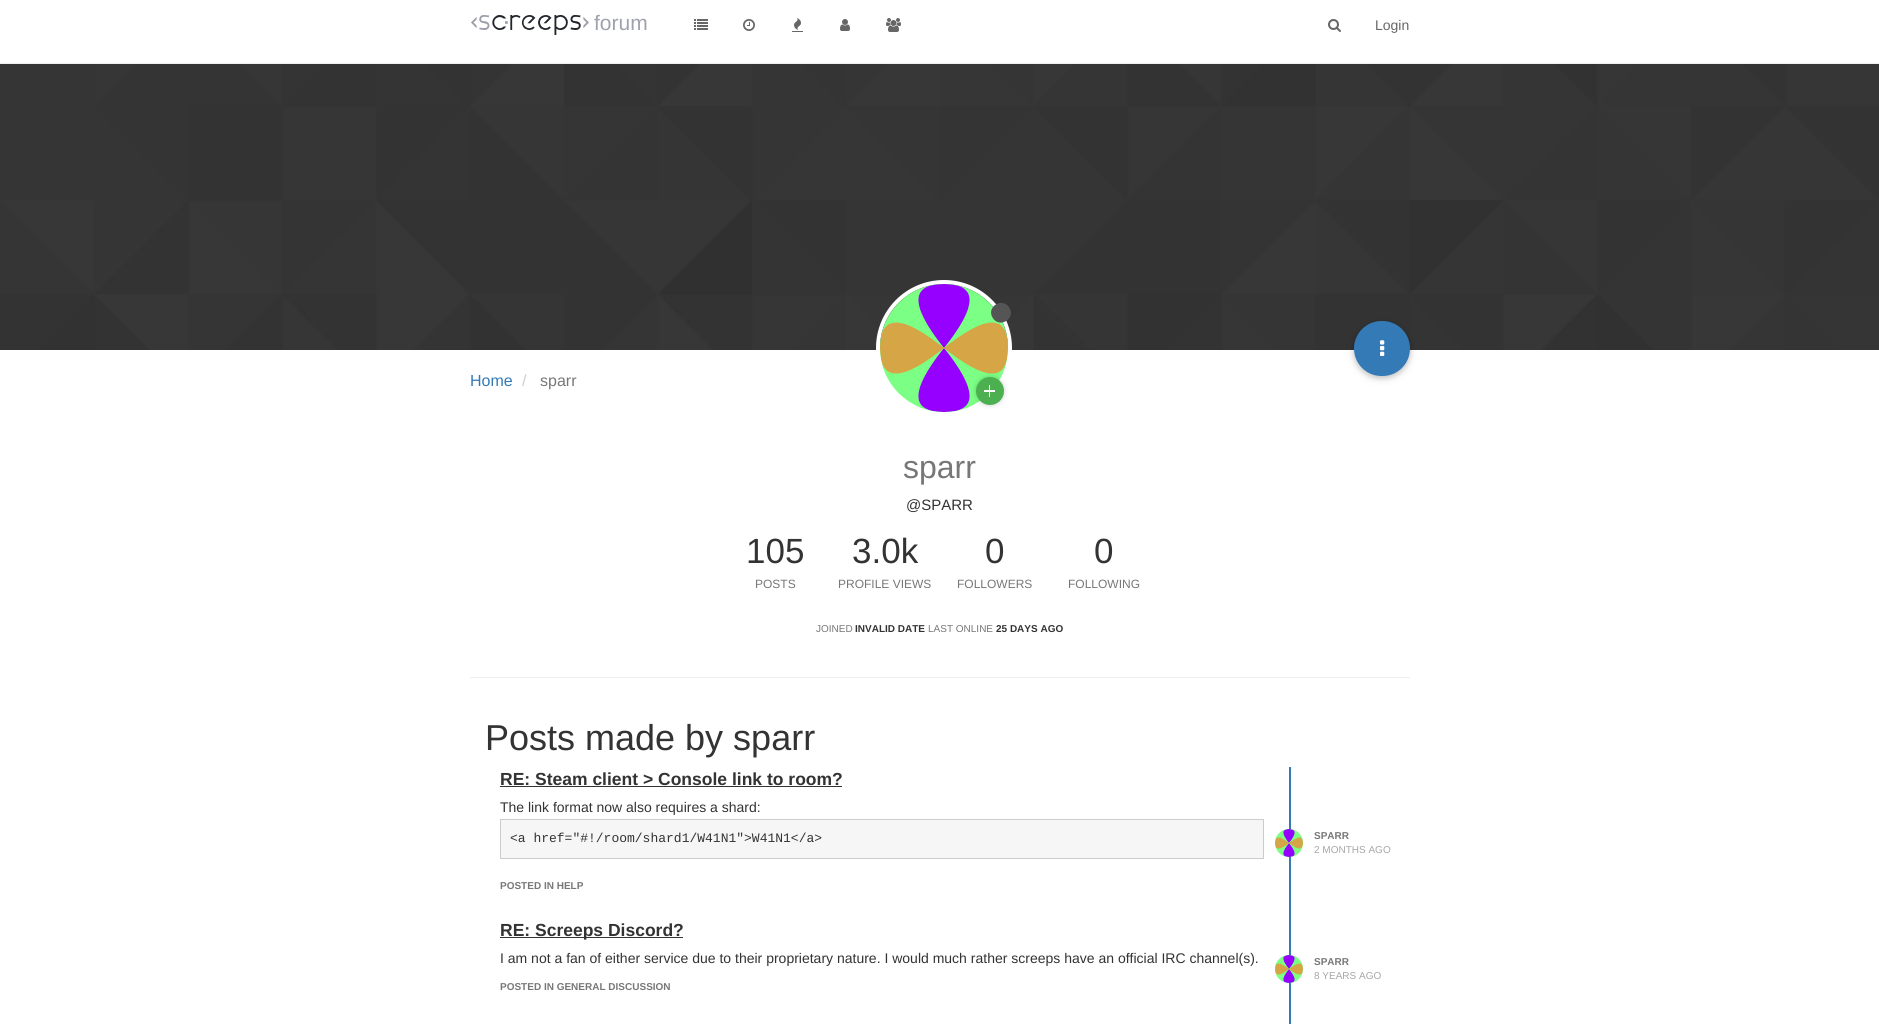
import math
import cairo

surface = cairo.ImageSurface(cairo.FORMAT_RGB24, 1879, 1024)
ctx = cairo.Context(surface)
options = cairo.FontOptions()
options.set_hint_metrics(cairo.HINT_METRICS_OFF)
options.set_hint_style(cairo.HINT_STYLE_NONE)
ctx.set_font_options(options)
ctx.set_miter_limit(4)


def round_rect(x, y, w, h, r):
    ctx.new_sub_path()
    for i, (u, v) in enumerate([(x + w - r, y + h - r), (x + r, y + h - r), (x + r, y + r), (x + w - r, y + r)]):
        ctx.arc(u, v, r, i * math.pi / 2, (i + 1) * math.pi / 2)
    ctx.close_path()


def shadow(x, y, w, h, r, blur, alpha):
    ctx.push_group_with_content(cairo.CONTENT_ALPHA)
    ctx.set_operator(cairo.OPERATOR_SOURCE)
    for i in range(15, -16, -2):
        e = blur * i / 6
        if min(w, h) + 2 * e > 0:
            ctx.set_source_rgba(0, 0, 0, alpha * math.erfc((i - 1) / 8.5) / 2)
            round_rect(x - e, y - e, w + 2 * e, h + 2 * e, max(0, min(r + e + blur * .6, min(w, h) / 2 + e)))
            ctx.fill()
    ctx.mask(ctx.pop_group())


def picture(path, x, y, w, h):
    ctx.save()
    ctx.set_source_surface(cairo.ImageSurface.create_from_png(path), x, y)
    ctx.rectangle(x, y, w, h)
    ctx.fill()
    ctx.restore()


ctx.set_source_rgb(1, 1, 1)
ctx.paint()
ctx.set_source_rgb(0.933, 0.933, 0.933)
ctx.rectangle(0, 63, 1879, 1)
ctx.fill()
picture("img1.png", 471, 15, 118, 20)
ctx.select_font_face("Liberation Sans")
ctx.set_font_size(21)
ctx.set_source_rgb(0.624, 0.631, 0.678)
ctx.move_to(594, 30)
ctx.show_text("forum")
picture("img2.png", 694, 19, 14, 11)
picture("img3.png", 743, 19, 12, 12)
picture("img4.png", 792, 18, 11, 14)
picture("img5.png", 840, 19, 10, 12)
picture("img6.png", 886, 18, 15, 14)
picture("img7.png", 1328, 19, 13, 13)
ctx.set_font_size(14)
ctx.set_source_rgb(0.4, 0.4, 0.4)
ctx.move_to(1375, 30)
ctx.show_text("Login")
picture("img8.png", 0, 64, 1879, 286)
ctx.arc(944, 348, 66, 0, 2 * math.pi)
ctx.set_source_rgb(1, 1, 1)
ctx.set_line_width(4)
ctx.stroke()
picture("img9.png", 880, 284, 128, 128)
ctx.set_source_rgb(0.333, 0.333, 0.333)
ctx.new_path()
ctx.move_to(1009.5, 308)
ctx.curve_to(1016, 319, 999, 329, 992.5, 317.5)
ctx.curve_to(986, 306.5, 1003, 296.5, 1009.5, 308)
ctx.close_path()
ctx.fill()
ctx.set_source_rgb(0, 0, 0)
shadow(976, 377, 28, 28, 14, 2.5, 0.2)
ctx.set_source_rgb(0.298, 0.686, 0.314)
ctx.arc(990, 391, 14, 0, 2 * math.pi)
ctx.fill()
ctx.set_source_rgb(1, 1, 1)
ctx.rectangle(984, 390, 11, 2)
ctx.fill()
ctx.rectangle(989, 385, 1, 12)
ctx.fill()
ctx.set_source_rgb(0, 0, 0)
shadow(1354, 323, 56, 55, 27.5, 5, 0.12)
shadow(1354, 323, 56, 55, 27.5, 2.5, 0.16)
ctx.set_source_rgb(0.2, 0.478, 0.718)
round_rect(1354, 321, 56, 55, 27.5)
ctx.fill()
picture("img10.png", 1380, 340, 5, 16)
ctx.set_font_size(16)
ctx.move_to(470, 386)
ctx.show_text("Home")
ctx.set_source_rgb(0.8, 0.8, 0.8)
ctx.move_to(522, 386)
ctx.show_text("/")
ctx.set_source_rgb(0.467, 0.467, 0.467)
ctx.move_to(540, 386)
ctx.show_text("sparr")
ctx.set_font_size(32)
ctx.move_to(903, 478)
ctx.show_text("sparr")
ctx.set_font_size(15)
ctx.set_source_rgb(0.2, 0.2, 0.2)
ctx.move_to(906, 510)
ctx.show_text("@SPARR")
ctx.set_font_size(35)
ctx.move_to(746, 563)
ctx.show_text("105")
ctx.set_font_size(12)
ctx.set_source_rgb(0.467, 0.467, 0.467)
ctx.move_to(755, 588)
ctx.show_text("POSTS")
ctx.set_font_size(35)
ctx.set_source_rgb(0.2, 0.2, 0.2)
ctx.move_to(852, 563)
ctx.show_text("3.0k")
ctx.set_font_size(12)
ctx.set_source_rgb(0.467, 0.467, 0.467)
ctx.move_to(838, 588)
ctx.show_text("PROFILE VIEWS")
ctx.set_font_size(35)
ctx.set_source_rgb(0.2, 0.2, 0.2)
ctx.move_to(985, 563)
ctx.show_text("0")
ctx.set_font_size(12)
ctx.set_source_rgb(0.467, 0.467, 0.467)
ctx.move_to(957, 588)
ctx.show_text("FOLLOWERS")
ctx.set_font_size(35)
ctx.set_source_rgb(0.2, 0.2, 0.2)
ctx.move_to(1094, 563)
ctx.show_text("0")
ctx.set_font_size(12)
ctx.set_source_rgb(0.467, 0.467, 0.467)
ctx.move_to(1068, 588)
ctx.show_text("FOLLOWING")
ctx.set_font_size(10)
ctx.move_to(816, 632)
ctx.show_text("JOINED")
ctx.select_font_face("Liberation Sans", cairo.FONT_SLANT_NORMAL, cairo.FONT_WEIGHT_BOLD)
ctx.set_source_rgb(0.2, 0.2, 0.2)
ctx.move_to(855, 632)
ctx.show_text("INVALID DATE")
ctx.select_font_face("Liberation Sans")
ctx.set_source_rgb(0.467, 0.467, 0.467)
ctx.move_to(928, 632)
ctx.show_text("LAST ONLINE")
ctx.select_font_face("Liberation Sans", cairo.FONT_SLANT_NORMAL, cairo.FONT_WEIGHT_BOLD)
ctx.set_source_rgb(0.2, 0.2, 0.2)
ctx.move_to(996, 632)
ctx.show_text("25 DAYS AGO")
ctx.set_source_rgb(0.933, 0.933, 0.933)
ctx.rectangle(470, 677, 940, 1)
ctx.fill()
ctx.select_font_face("Liberation Sans")
ctx.set_font_size(36)
ctx.set_source_rgb(0.2, 0.2, 0.2)
ctx.move_to(485, 750)
ctx.show_text("Posts made by sparr")
ctx.set_source_rgb(0.2, 0.478, 0.718)
ctx.rectangle(1289, 767, 2, 257)
ctx.fill()
ctx.select_font_face("Liberation Sans", cairo.FONT_SLANT_NORMAL, cairo.FONT_WEIGHT_BOLD)
ctx.set_font_size(17.5)
ctx.set_source_rgb(0.2, 0.2, 0.2)
ctx.move_to(500, 785)
ctx.show_text("RE: Steam client > Console link to room?")
ctx.rectangle(500, 786, 342, 1)
ctx.fill()
ctx.select_font_face("Liberation Sans")
ctx.set_font_size(14)
ctx.move_to(500, 812)
ctx.show_text("The link format now also requires a shard:")
ctx.set_source_rgb(0.961, 0.961, 0.961)
ctx.rectangle(500.5, 819.5, 763, 39)
ctx.fill_preserve()
ctx.set_source_rgb(0.8, 0.8, 0.8)
ctx.set_line_width(1)
ctx.stroke()
ctx.select_font_face("Liberation Mono")
ctx.set_font_size(13)
ctx.set_source_rgb(0.2, 0.2, 0.2)
ctx.move_to(510, 842)
ctx.show_text("<a href=\"#!/room/shard1/W41N1\">W41N1</a>")
picture("img11.png", 1275, 829, 28, 28)
ctx.select_font_face("Liberation Sans", cairo.FONT_SLANT_NORMAL, cairo.FONT_WEIGHT_BOLD)
ctx.set_font_size(10)
ctx.set_source_rgb(0.467, 0.467, 0.467)
ctx.move_to(1314, 839)
ctx.show_text("SPARR")
ctx.select_font_face("Liberation Sans")
ctx.set_source_rgb(0.651, 0.651, 0.651)
ctx.move_to(1314, 853)
ctx.show_text("2 MONTHS AGO")
ctx.select_font_face("Liberation Sans", cairo.FONT_SLANT_NORMAL, cairo.FONT_WEIGHT_BOLD)
ctx.set_source_rgb(0.467, 0.467, 0.467)
ctx.move_to(500, 889)
ctx.show_text("POSTED IN HELP")
ctx.set_source_rgb(0.2, 0.2, 0.2)
ctx.rectangle(500, 937, 183, 1)
ctx.fill()
ctx.set_font_size(17.5)
ctx.move_to(500, 936)
ctx.show_text("RE: Screeps Discord?")
ctx.select_font_face("Liberation Sans")
ctx.set_font_size(14)
ctx.move_to(500, 963)
ctx.show_text("I am not a fan of either service due to their proprietary nature. I would much rather screeps have an official IRC channel(s).")
picture("img11.png", 1275, 955, 28, 28)
ctx.select_font_face("Liberation Sans", cairo.FONT_SLANT_NORMAL, cairo.FONT_WEIGHT_BOLD)
ctx.set_font_size(10)
ctx.set_source_rgb(0.467, 0.467, 0.467)
ctx.move_to(1314, 965)
ctx.show_text("SPARR")
ctx.select_font_face("Liberation Sans")
ctx.set_source_rgb(0.651, 0.651, 0.651)
ctx.move_to(1314, 979)
ctx.show_text("8 YEARS AGO")
ctx.select_font_face("Liberation Sans", cairo.FONT_SLANT_NORMAL, cairo.FONT_WEIGHT_BOLD)
ctx.set_source_rgb(0.467, 0.467, 0.467)
ctx.move_to(500, 990)
ctx.show_text("POSTED IN GENERAL DISCUSSION")
surface.write_to_png("page.png")
